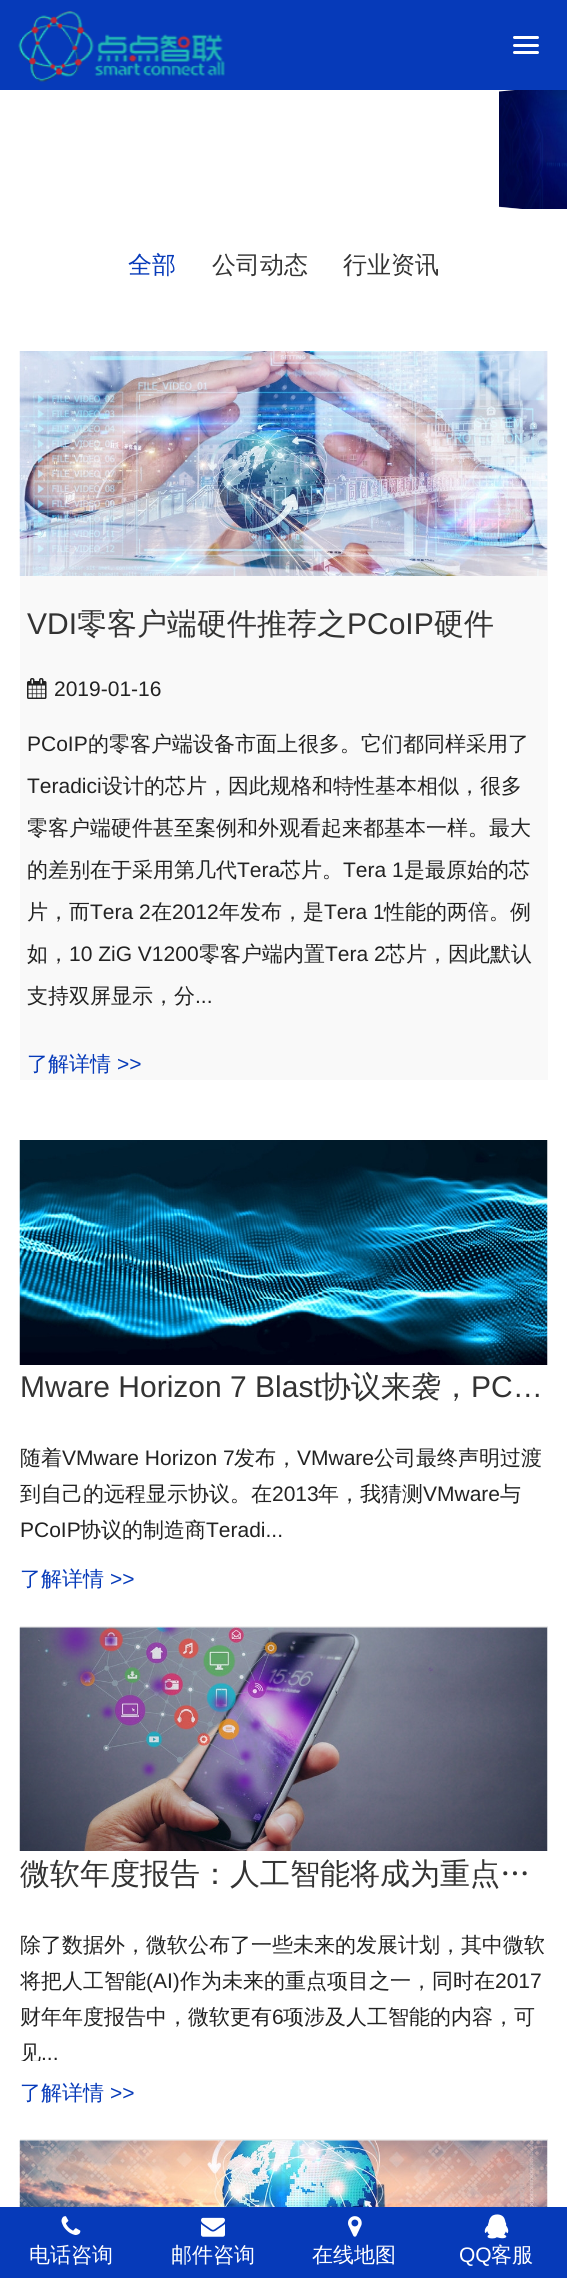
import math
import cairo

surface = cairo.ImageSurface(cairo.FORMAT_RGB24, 567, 2278)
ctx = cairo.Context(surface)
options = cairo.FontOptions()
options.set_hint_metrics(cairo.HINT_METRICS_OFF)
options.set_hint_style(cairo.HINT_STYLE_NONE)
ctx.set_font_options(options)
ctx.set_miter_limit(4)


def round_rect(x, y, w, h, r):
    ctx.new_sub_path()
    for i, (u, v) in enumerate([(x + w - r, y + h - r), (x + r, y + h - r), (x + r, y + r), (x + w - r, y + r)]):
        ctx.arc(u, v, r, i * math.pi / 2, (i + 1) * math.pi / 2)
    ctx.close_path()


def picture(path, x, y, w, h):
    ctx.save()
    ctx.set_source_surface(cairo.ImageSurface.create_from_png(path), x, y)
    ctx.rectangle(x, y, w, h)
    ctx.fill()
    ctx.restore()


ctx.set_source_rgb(1, 1, 1)
ctx.paint()
ctx.set_source_rgb(0.027, 0.227, 0.725)
ctx.rectangle(0, 0, 567, 90)
ctx.fill()
picture("img1.png", 18, 11, 207, 71)
ctx.set_source_rgb(1, 1, 1)
round_rect(513, 36, 26, 3, 1.5)
ctx.fill()
round_rect(513, 44, 26, 3, 1.5)
ctx.fill()
round_rect(513, 51, 26, 3, 1.5)
ctx.fill()
picture("img2.png", 499, 90, 68, 119)
ctx.select_font_face("WenQuanYi Zen Hei Medium")
ctx.set_font_size(24)
ctx.set_source_rgb(0.027, 0.227, 0.725)
ctx.move_to(128, 273)
ctx.show_text("全部")
ctx.set_source_rgb(0.2, 0.2, 0.2)
ctx.move_to(212, 273)
ctx.show_text("公司动态")
ctx.move_to(343, 273)
ctx.show_text("行业资讯")
ctx.set_source_rgb(0.976, 0.976, 0.976)
ctx.rectangle(20, 351, 528, 729)
ctx.fill()
picture("img3.png", 19, 351, 529, 225)
ctx.select_font_face("Liberation Sans")
ctx.set_font_size(30)
ctx.set_source_rgb(0.2, 0.2, 0.2)
ctx.move_to(27, 634)
ctx.show_text("VDI")
ctx.select_font_face("WenQuanYi Zen Hei Medium")
ctx.move_to(77, 634)
ctx.show_text("零客户端硬件推荐之")
ctx.select_font_face("Liberation Sans")
ctx.move_to(347, 634)
ctx.show_text("PCoIP")
ctx.select_font_face("WenQuanYi Zen Hei Medium")
ctx.move_to(434, 634)
ctx.show_text("硬件")
picture("img4.png", 27, 678, 20, 21)
ctx.select_font_face("Liberation Sans")
ctx.set_font_size(21)
ctx.set_source_rgb(0.133, 0.133, 0.133)
ctx.move_to(54, 696)
ctx.show_text("2019-01-16")
ctx.move_to(27, 751)
ctx.show_text("PCoIP")
ctx.select_font_face("WenQuanYi Zen Hei Medium")
ctx.move_to(88, 751)
ctx.show_text("的零客户端设备市面上很多。它们都同样采用了")
ctx.select_font_face("Liberation Sans")
ctx.move_to(27, 793)
ctx.show_text("Teradici")
ctx.select_font_face("WenQuanYi Zen Hei Medium")
ctx.move_to(102, 793)
ctx.show_text("设计的芯片，因此规格和特性基本相似，很多")
ctx.move_to(27, 835)
ctx.show_text("零客户端硬件甚至案例和外观看起来都基本一样。最大")
ctx.move_to(27, 877)
ctx.show_text("的差别在于采用第几代")
ctx.select_font_face("Liberation Sans")
ctx.move_to(237, 877)
ctx.show_text("Tera")
ctx.select_font_face("WenQuanYi Zen Hei Medium")
ctx.move_to(280, 877)
ctx.show_text("芯片。")
ctx.select_font_face("Liberation Sans")
ctx.move_to(343, 877)
ctx.show_text("Tera 1")
ctx.select_font_face("WenQuanYi Zen Hei Medium")
ctx.move_to(404, 877)
ctx.show_text("是最原始的芯")
ctx.move_to(27, 919)
ctx.show_text("片，而")
ctx.select_font_face("Liberation Sans")
ctx.move_to(90, 919)
ctx.show_text("Tera 2")
ctx.select_font_face("WenQuanYi Zen Hei Medium")
ctx.move_to(151, 919)
ctx.show_text("在")
ctx.select_font_face("Liberation Sans")
ctx.move_to(172, 919)
ctx.show_text("2012")
ctx.select_font_face("WenQuanYi Zen Hei Medium")
ctx.move_to(219, 919)
ctx.show_text("年发布，是")
ctx.select_font_face("Liberation Sans")
ctx.move_to(324, 919)
ctx.show_text("Tera 1")
ctx.select_font_face("WenQuanYi Zen Hei Medium")
ctx.move_to(384, 919)
ctx.show_text("性能的两倍。例")
ctx.move_to(27, 961)
ctx.show_text("如，")
ctx.select_font_face("Liberation Sans")
ctx.move_to(69, 961)
ctx.show_text("10 ZiG V1200")
ctx.select_font_face("WenQuanYi Zen Hei Medium")
ctx.move_to(199, 961)
ctx.show_text("零客户端内置")
ctx.select_font_face("Liberation Sans")
ctx.move_to(325, 961)
ctx.show_text("Tera 2")
ctx.select_font_face("WenQuanYi Zen Hei Medium")
ctx.move_to(385, 961)
ctx.show_text("芯片，因此默认")
ctx.move_to(27, 1003)
ctx.show_text("支持双屏显示，分")
ctx.select_font_face("Liberation Sans")
ctx.move_to(195, 1003)
ctx.show_text("...")
ctx.select_font_face("WenQuanYi Zen Hei Medium")
ctx.set_source_rgb(0.027, 0.227, 0.725)
ctx.move_to(27, 1071)
ctx.show_text("了解详情")
ctx.select_font_face("Liberation Sans")
ctx.move_to(117, 1071)
ctx.show_text(">>")
ctx.set_source_rgb(0.933, 0.933, 0.933)
ctx.rectangle(20, 1626, 528, 2)
ctx.fill()
picture("img5.png", 19, 1140, 529, 225)
ctx.set_font_size(30)
ctx.set_source_rgb(0.2, 0.2, 0.2)
ctx.move_to(20, 1397)
ctx.show_text("Mware Horizon 7 Blast")
ctx.select_font_face("WenQuanYi Zen Hei Medium")
ctx.move_to(321, 1397)
ctx.show_text("协议来袭，")
ctx.select_font_face("Liberation Sans")
ctx.move_to(471, 1397)
ctx.show_text("PC…")
ctx.select_font_face("WenQuanYi Zen Hei Medium")
ctx.set_font_size(21)
ctx.set_source_rgb(0.133, 0.133, 0.133)
ctx.move_to(20, 1465)
ctx.show_text("随着")
ctx.select_font_face("Liberation Sans")
ctx.move_to(62, 1465)
ctx.show_text("VMware Horizon 7")
ctx.select_font_face("WenQuanYi Zen Hei Medium")
ctx.move_to(234, 1465)
ctx.show_text("发布，")
ctx.select_font_face("Liberation Sans")
ctx.move_to(297, 1465)
ctx.show_text("VMware")
ctx.select_font_face("WenQuanYi Zen Hei Medium")
ctx.move_to(374, 1465)
ctx.show_text("公司最终声明过渡")
ctx.move_to(20, 1501)
ctx.show_text("到自己的远程显示协议。在")
ctx.select_font_face("Liberation Sans")
ctx.move_to(272, 1501)
ctx.show_text("2013")
ctx.select_font_face("WenQuanYi Zen Hei Medium")
ctx.move_to(318, 1501)
ctx.show_text("年，我猜测")
ctx.select_font_face("Liberation Sans")
ctx.move_to(423, 1501)
ctx.show_text("VMware")
ctx.select_font_face("WenQuanYi Zen Hei Medium")
ctx.move_to(500, 1501)
ctx.show_text("与")
ctx.select_font_face("Liberation Sans")
ctx.move_to(20, 1537)
ctx.show_text("PCoIP")
ctx.select_font_face("WenQuanYi Zen Hei Medium")
ctx.move_to(80, 1537)
ctx.show_text("协议的制造商")
ctx.select_font_face("Liberation Sans")
ctx.move_to(206, 1537)
ctx.show_text("Teradi...")
ctx.select_font_face("WenQuanYi Zen Hei Medium")
ctx.set_source_rgb(0.027, 0.227, 0.725)
ctx.move_to(20, 1586)
ctx.show_text("了解详情")
ctx.select_font_face("Liberation Sans")
ctx.move_to(110, 1586)
ctx.show_text(">>")
ctx.set_source_rgb(0.933, 0.933, 0.933)
ctx.rectangle(20, 2139, 528, 2)
ctx.fill()
picture("img6.png", 19, 1627, 529, 224)
ctx.select_font_face("WenQuanYi Zen Hei Medium")
ctx.set_font_size(30)
ctx.set_source_rgb(0.2, 0.2, 0.2)
ctx.move_to(20, 1884)
ctx.show_text("微软年度报告：人工智能将成为重点…")
ctx.set_font_size(21)
ctx.set_source_rgb(0.133, 0.133, 0.133)
ctx.move_to(20, 1952)
ctx.show_text("除了数据外，微软公布了一些未来的发展计划，其中微软")
ctx.move_to(20, 1988)
ctx.show_text("将把人工智能")
ctx.select_font_face("Liberation Sans")
ctx.move_to(146, 1988)
ctx.show_text("(AI)")
ctx.select_font_face("WenQuanYi Zen Hei Medium")
ctx.move_to(180, 1988)
ctx.show_text("作为未来的重点项目之一，同时在")
ctx.select_font_face("Liberation Sans")
ctx.move_to(495, 1988)
ctx.show_text("2017")
ctx.select_font_face("WenQuanYi Zen Hei Medium")
ctx.move_to(20, 2024)
ctx.show_text("财年年度报告中，微软更有")
ctx.select_font_face("Liberation Sans")
ctx.move_to(272, 2024)
ctx.show_text("6")
ctx.select_font_face("WenQuanYi Zen Hei Medium")
ctx.move_to(283, 2024)
ctx.show_text("项涉及人工智能的内容，可")
ctx.save()
ctx.rectangle(20, 1896, 528, 165)
ctx.clip()
ctx.move_to(20, 2060)
ctx.show_text("见")
ctx.restore()
ctx.select_font_face("Liberation Sans")
ctx.move_to(41, 2060)
ctx.show_text("...")
ctx.select_font_face("WenQuanYi Zen Hei Medium")
ctx.set_source_rgb(0.027, 0.227, 0.725)
ctx.move_to(20, 2100)
ctx.show_text("了解详情")
ctx.select_font_face("Liberation Sans")
ctx.move_to(110, 2100)
ctx.show_text(">>")
picture("img7.png", 19, 2140, 529, 67)
ctx.rectangle(0, 2207, 567, 71)
ctx.fill()
picture("img8.png", 61, 2216, 20, 19)
ctx.select_font_face("WenQuanYi Zen Hei Medium")
ctx.set_source_rgb(1, 1, 1)
ctx.move_to(29, 2262)
ctx.show_text("电话咨询")
picture("img9.png", 201, 2217, 24, 20)
ctx.move_to(171, 2262)
ctx.show_text("邮件咨询")
picture("img10.png", 348, 2216, 14, 21)
ctx.move_to(312, 2262)
ctx.show_text("在线地图")
picture("img11.png", 484, 2214, 25, 25)
ctx.select_font_face("Liberation Sans")
ctx.move_to(459, 2262)
ctx.show_text("QQ")
ctx.select_font_face("WenQuanYi Zen Hei Medium")
ctx.move_to(491, 2262)
ctx.show_text("客服")
surface.write_to_png("page.png")
